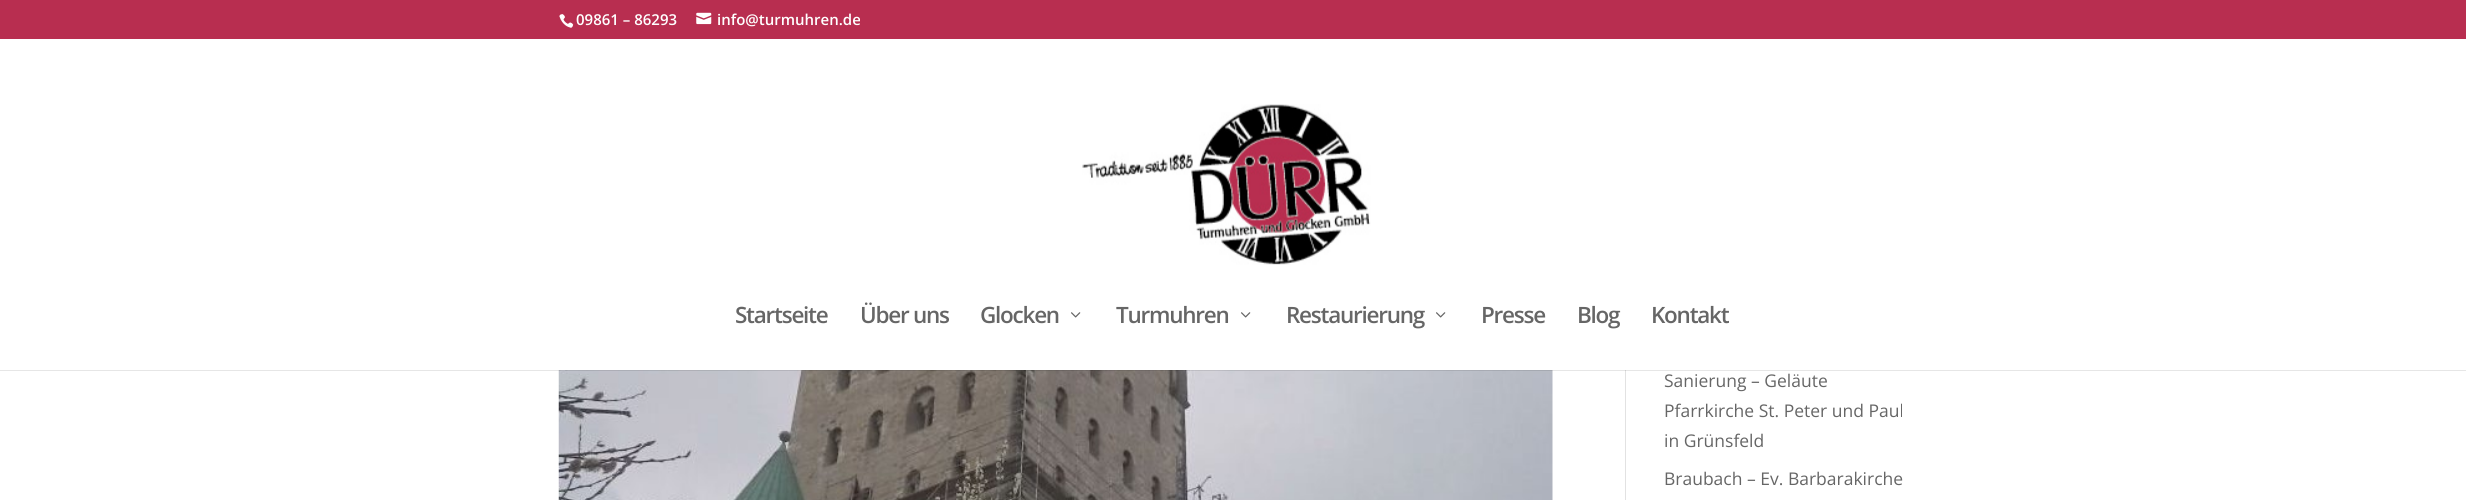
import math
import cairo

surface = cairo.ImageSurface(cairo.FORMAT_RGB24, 2466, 500)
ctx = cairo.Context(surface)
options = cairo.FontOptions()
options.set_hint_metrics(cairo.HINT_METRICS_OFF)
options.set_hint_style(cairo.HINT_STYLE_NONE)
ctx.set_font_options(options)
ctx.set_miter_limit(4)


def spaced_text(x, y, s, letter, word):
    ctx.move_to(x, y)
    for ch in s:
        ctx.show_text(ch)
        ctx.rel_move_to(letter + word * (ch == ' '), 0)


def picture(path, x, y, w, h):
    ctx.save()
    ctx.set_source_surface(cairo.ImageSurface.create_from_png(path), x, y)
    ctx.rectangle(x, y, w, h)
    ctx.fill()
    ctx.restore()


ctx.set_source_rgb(1, 1, 1)
ctx.paint()
ctx.set_source_rgb(0.722, 0.18, 0.314)
ctx.rectangle(0, 0, 2466, 39)
ctx.fill()
picture("img1.png", 559, 14, 15, 14)
ctx.select_font_face("Open Sans SemiBold")
ctx.set_font_size(15)
ctx.set_source_rgb(1, 1, 1)
ctx.move_to(576, 25)
ctx.show_text("09861 – 86293")
picture("img2.png", 696, 12, 16, 13)
ctx.move_to(717, 25)
ctx.show_text("info@turmuhren.de")
ctx.set_source_rgb(0.886, 0.886, 0.886)
ctx.rectangle(1625, 370, 1, 130)
ctx.fill()
picture("img5.png", 558, 370, 995, 130)
ctx.set_source_rgba(0, 0, 0, 0.1)
ctx.rectangle(0, 370, 2466, 1)
ctx.fill()
picture("img3.png", 1082, 104, 289, 161)
ctx.set_font_size(22.5)
ctx.set_source_rgb(0.4, 0.4, 0.4)
spaced_text(735, 323, "Startseite", -1.25, 0)
spaced_text(860, 323, "Über uns", -1.25, 0)
spaced_text(980, 323, "Glocken", -1.25, 0)
picture("img4.png", 1071, 312, 10, 6)
spaced_text(1116, 323, "Turmuhren", -1.25, 0)
picture("img4.png", 1241, 312, 10, 6)
spaced_text(1286, 323, "Restaurierung", -1.25, 0)
picture("img4.png", 1436, 312, 10, 6)
spaced_text(1481, 323, "Presse", -1.25, 0)
spaced_text(1577, 323, "Blog", -1.25, 0)
spaced_text(1651, 323, "Kontakt", -1.25, 0)
ctx.select_font_face("Open Sans")
ctx.set_font_size(17.5)
ctx.move_to(1664, 387)
ctx.show_text("Sanierung – Geläute")
ctx.move_to(1664, 417)
ctx.show_text("Pfarrkirche St. Peter und Paul")
ctx.move_to(1664, 447)
ctx.show_text("in Grünsfeld")
ctx.move_to(1664, 485)
ctx.show_text("Braubach – Ev. Barbarakirche")
surface.write_to_png("page.png")
